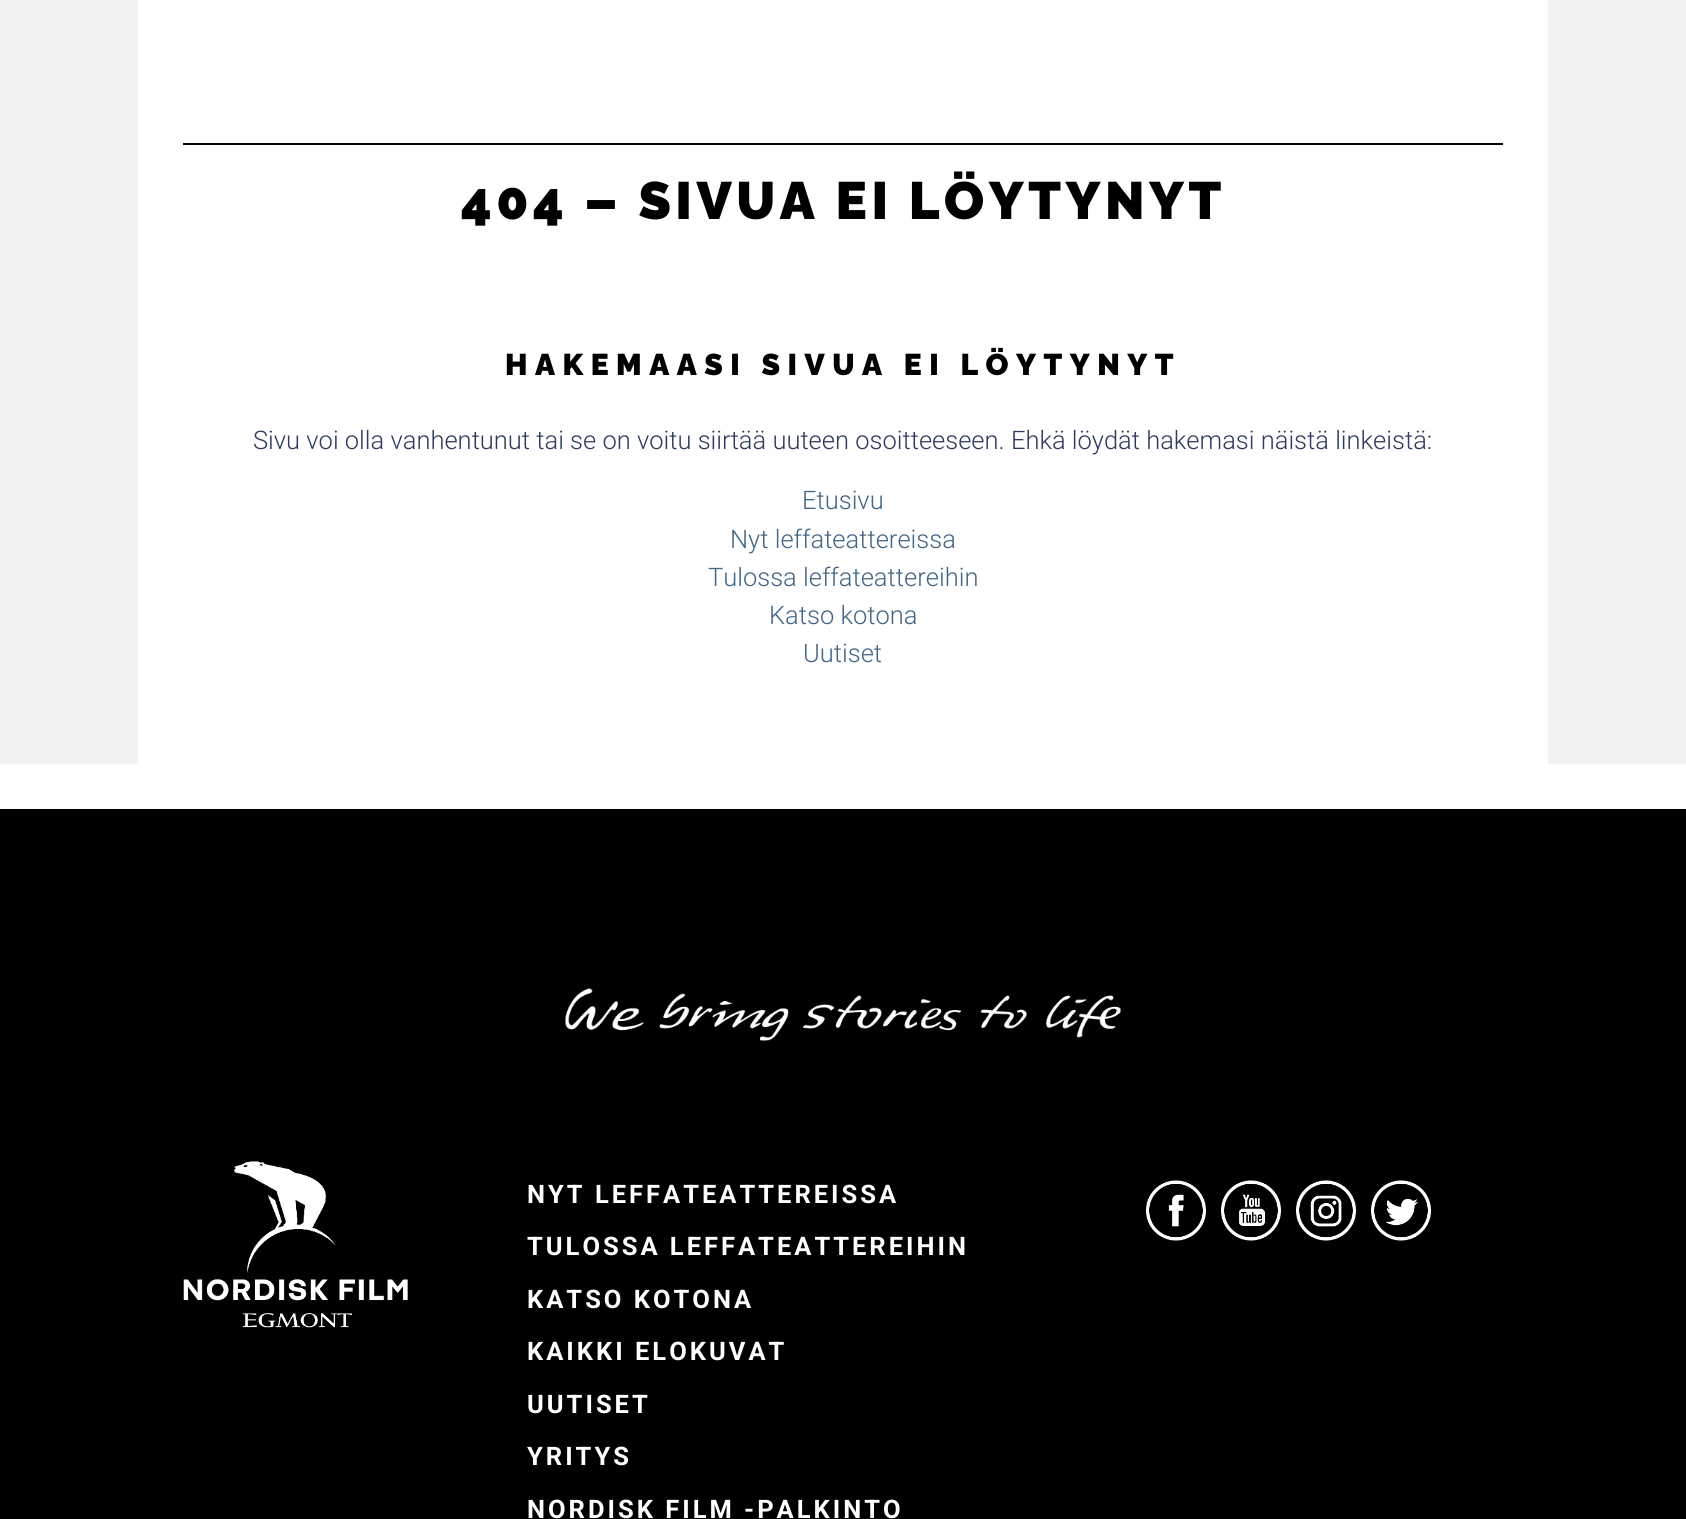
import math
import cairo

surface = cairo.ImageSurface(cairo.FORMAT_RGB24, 1686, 1519)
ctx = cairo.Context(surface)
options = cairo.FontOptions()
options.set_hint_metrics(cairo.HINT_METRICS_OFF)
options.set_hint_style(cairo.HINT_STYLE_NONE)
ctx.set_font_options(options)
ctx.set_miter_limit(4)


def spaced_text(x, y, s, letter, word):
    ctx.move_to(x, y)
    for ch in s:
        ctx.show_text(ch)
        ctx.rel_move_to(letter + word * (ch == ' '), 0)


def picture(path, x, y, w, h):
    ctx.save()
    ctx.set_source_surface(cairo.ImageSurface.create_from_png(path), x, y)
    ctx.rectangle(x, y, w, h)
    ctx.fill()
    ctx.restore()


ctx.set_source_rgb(1, 1, 1)
ctx.paint()
ctx.set_source_rgb(0.945, 0.949, 0.953)
ctx.rectangle(0, 0, 1686, 764)
ctx.fill()
ctx.set_source_rgb(1, 1, 1)
ctx.rectangle(138, 0, 1410, 764)
ctx.fill()
ctx.set_source_rgb(0, 0, 0)
ctx.rectangle(183, 143, 1320, 2)
ctx.fill()
ctx.select_font_face("Raleway Black")
ctx.set_font_size(52.5)
spaced_text(461, 219, "404 – SIVUA EI LÖYTYNYT", 4.5, 0)
ctx.set_font_size(30)
spaced_text(505, 375, "HAKEMAASI SIVUA EI LÖYTYNYT", 7.5, 0)
ctx.select_font_face("Roboto Light")
ctx.set_font_size(25.5)
ctx.set_source_rgb(0.173, 0.227, 0.369)
ctx.move_to(253, 449)
ctx.show_text("Sivu voi olla vanhentunut tai se on voitu siirtää uuteen osoitteeseen. Ehkä löydät hakemasi näistä linkeistä:")
ctx.set_source_rgb(0.263, 0.396, 0.522)
ctx.move_to(802, 509)
ctx.show_text("Etusivu")
ctx.move_to(730, 548)
ctx.show_text("Nyt leffateattereissa")
ctx.move_to(708, 586)
ctx.show_text("Tulossa leffateattereihin")
ctx.move_to(769, 624)
ctx.show_text("Katso kotona")
ctx.move_to(803, 662)
ctx.show_text("Uutiset")
ctx.set_source_rgb(0, 0, 0)
ctx.rectangle(0, 809, 1686, 710)
ctx.fill()
picture("img1.png", 565, 988, 556, 53)
picture("img2.png", 183, 1161, 225, 167)
ctx.select_font_face("Roboto", cairo.FONT_SLANT_NORMAL, cairo.FONT_WEIGHT_BOLD)
ctx.set_source_rgb(1, 1, 1)
spaced_text(527, 1203, "NYT LEFFATEATTEREISSA", 3, 0)
spaced_text(527, 1255, "TULOSSA LEFFATEATTEREIHIN", 3, 0)
spaced_text(527, 1308, "KATSO KOTONA", 3, 0)
spaced_text(527, 1360, "KAIKKI ELOKUVAT", 3, 0)
spaced_text(527, 1413, "UUTISET", 3, 0)
spaced_text(527, 1465, "YRITYS", 3, 0)
spaced_text(527, 1518, "NORDISK FILM -PALKINTO", 3, 0)
picture("img3.png", 1146, 1180, 60, 61)
picture("img4.png", 1221, 1180, 60, 61)
picture("img5.png", 1296, 1180, 60, 61)
picture("img6.png", 1371, 1180, 60, 61)
surface.write_to_png("page.png")
